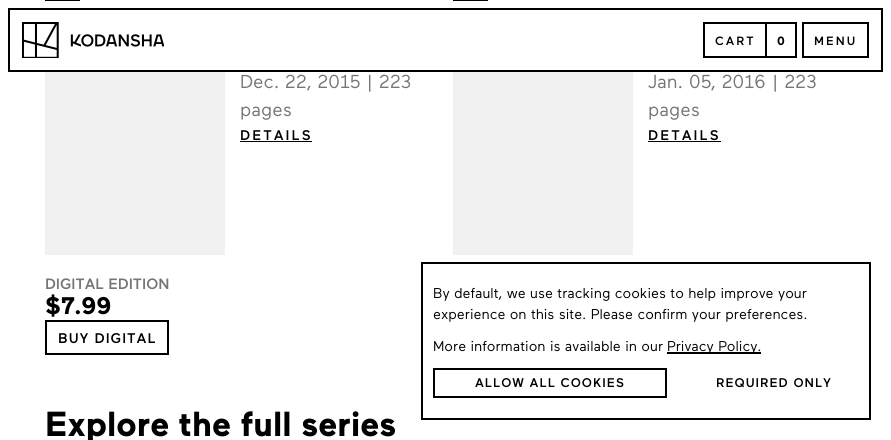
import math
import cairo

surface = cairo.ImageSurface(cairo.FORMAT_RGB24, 891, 440)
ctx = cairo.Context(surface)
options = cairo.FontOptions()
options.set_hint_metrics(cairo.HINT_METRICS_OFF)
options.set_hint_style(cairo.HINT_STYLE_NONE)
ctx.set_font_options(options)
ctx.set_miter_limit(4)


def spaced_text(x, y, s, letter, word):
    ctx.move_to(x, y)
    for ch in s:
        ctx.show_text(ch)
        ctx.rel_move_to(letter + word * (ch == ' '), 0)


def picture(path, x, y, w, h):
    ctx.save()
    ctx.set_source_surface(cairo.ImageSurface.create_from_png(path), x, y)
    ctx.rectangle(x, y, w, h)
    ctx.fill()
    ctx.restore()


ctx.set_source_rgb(1, 1, 1)
ctx.paint()
ctx.rectangle(9, 9, 873, 62)
ctx.set_source_rgb(0, 0, 0)
ctx.stroke()
picture("img1.png", 22, 22, 142, 36)
ctx.rectangle(704, 23, 62, 34)
ctx.stroke()
ctx.select_font_face("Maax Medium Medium")
ctx.set_font_size(12)
spaced_text(715, 45, "CART", 2, 0)
ctx.rectangle(767, 22, 30, 2)
ctx.fill()
ctx.rectangle(795, 22, 2, 36)
ctx.fill()
ctx.rectangle(767, 56, 30, 2)
ctx.fill()
ctx.select_font_face("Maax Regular", cairo.FONT_SLANT_NORMAL, cairo.FONT_WEIGHT_BOLD)
ctx.move_to(777, 45)
ctx.show_text("0")
ctx.rectangle(803, 23, 65, 34)
ctx.stroke()
ctx.select_font_face("Maax Medium Medium")
spaced_text(814, 45, "MENU", 2, 0)
ctx.rectangle(46, -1, 33, 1)
ctx.stroke()
ctx.set_source_rgb(0.945, 0.945, 0.945)
ctx.rectangle(45, 72, 180, 183)
ctx.fill()
ctx.select_font_face("Maax Regular")
ctx.set_font_size(18.75)
ctx.set_source_rgb(0.459, 0.459, 0.459)
ctx.move_to(240, 88)
ctx.show_text("Dec. 22, 2015 | 223")
ctx.move_to(240, 116)
ctx.show_text("pages")
ctx.select_font_face("Maax Medium Medium")
ctx.set_font_size(14)
ctx.set_source_rgb(0, 0, 0)
spaced_text(240, 140, "DETAILS", 2, 0)
ctx.rectangle(240, 141, 72, 1)
ctx.fill()
ctx.set_font_size(15)
ctx.set_source_rgb(0.459, 0.459, 0.459)
ctx.move_to(45, 289)
ctx.show_text("DIGITAL EDITION")
ctx.select_font_face("Maax Regular", cairo.FONT_SLANT_NORMAL, cairo.FONT_WEIGHT_BOLD)
ctx.set_font_size(24)
ctx.set_source_rgb(0, 0, 0)
ctx.move_to(45, 314)
ctx.show_text("$7.99")
ctx.rectangle(46, 321, 122, 33)
ctx.stroke()
ctx.select_font_face("Maax Medium Medium")
ctx.set_font_size(14)
spaced_text(58, 343, "BUY DIGITAL", 1, 0)
ctx.rectangle(454, -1, 33, 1)
ctx.stroke()
ctx.set_source_rgb(0.945, 0.945, 0.945)
ctx.rectangle(453, 72, 180, 183)
ctx.fill()
ctx.select_font_face("Maax Regular")
ctx.set_font_size(18.75)
ctx.set_source_rgb(0.459, 0.459, 0.459)
ctx.move_to(648, 88)
ctx.show_text("Jan. 05, 2016 | 223")
ctx.move_to(648, 116)
ctx.show_text("pages")
ctx.select_font_face("Maax Medium Medium")
ctx.set_font_size(14)
ctx.set_source_rgb(0, 0, 0)
spaced_text(648, 140, "DETAILS", 2, 0)
ctx.rectangle(648, 141, 73, 1)
ctx.fill()
ctx.rectangle(422, 263, 448, 156)
ctx.stroke()
ctx.select_font_face("Maax Regular")
ctx.set_font_size(14.25)
ctx.move_to(433, 298)
ctx.show_text("By default, we use tracking cookies to help improve your")
ctx.move_to(433, 319)
ctx.show_text("experience on this site. Please confirm your preferences.")
ctx.move_to(433, 351)
ctx.show_text("More information is available in our")
ctx.rectangle(667, 352, 94, 2)
ctx.fill()
ctx.move_to(667, 351)
ctx.show_text("Privacy Policy.")
ctx.rectangle(434, 369, 232, 28)
ctx.stroke()
ctx.select_font_face("Maax Medium Medium")
ctx.set_font_size(12.6)
spaced_text(475, 387, "ALLOW ALL COOKIES", 1, 0)
spaced_text(716, 387, "REQUIRED ONLY", 1, 0)
ctx.select_font_face("Maax Regular", cairo.FONT_SLANT_NORMAL, cairo.FONT_WEIGHT_BOLD)
ctx.set_font_size(34.75)
ctx.move_to(45, 436)
ctx.show_text("Explore the full series")
surface.write_to_png("page.png")
